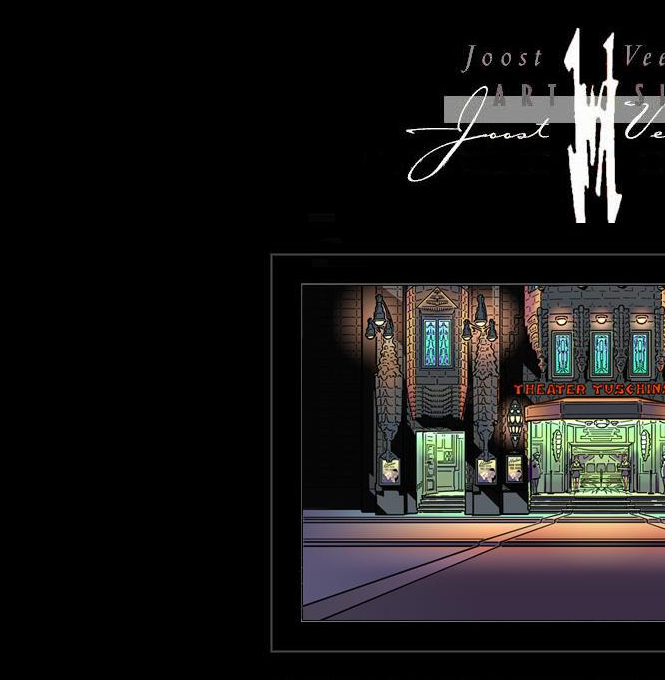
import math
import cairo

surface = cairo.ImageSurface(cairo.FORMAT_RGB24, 665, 680)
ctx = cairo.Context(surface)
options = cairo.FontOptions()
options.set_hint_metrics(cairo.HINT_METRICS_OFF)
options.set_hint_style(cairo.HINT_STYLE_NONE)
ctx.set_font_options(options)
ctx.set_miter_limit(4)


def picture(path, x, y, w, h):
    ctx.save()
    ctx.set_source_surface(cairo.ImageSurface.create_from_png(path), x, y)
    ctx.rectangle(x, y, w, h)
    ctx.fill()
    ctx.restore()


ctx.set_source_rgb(0, 0, 0)
ctx.paint()
picture("img1.png", 263, 26, 402, 654)
surface.write_to_png("page.png")
